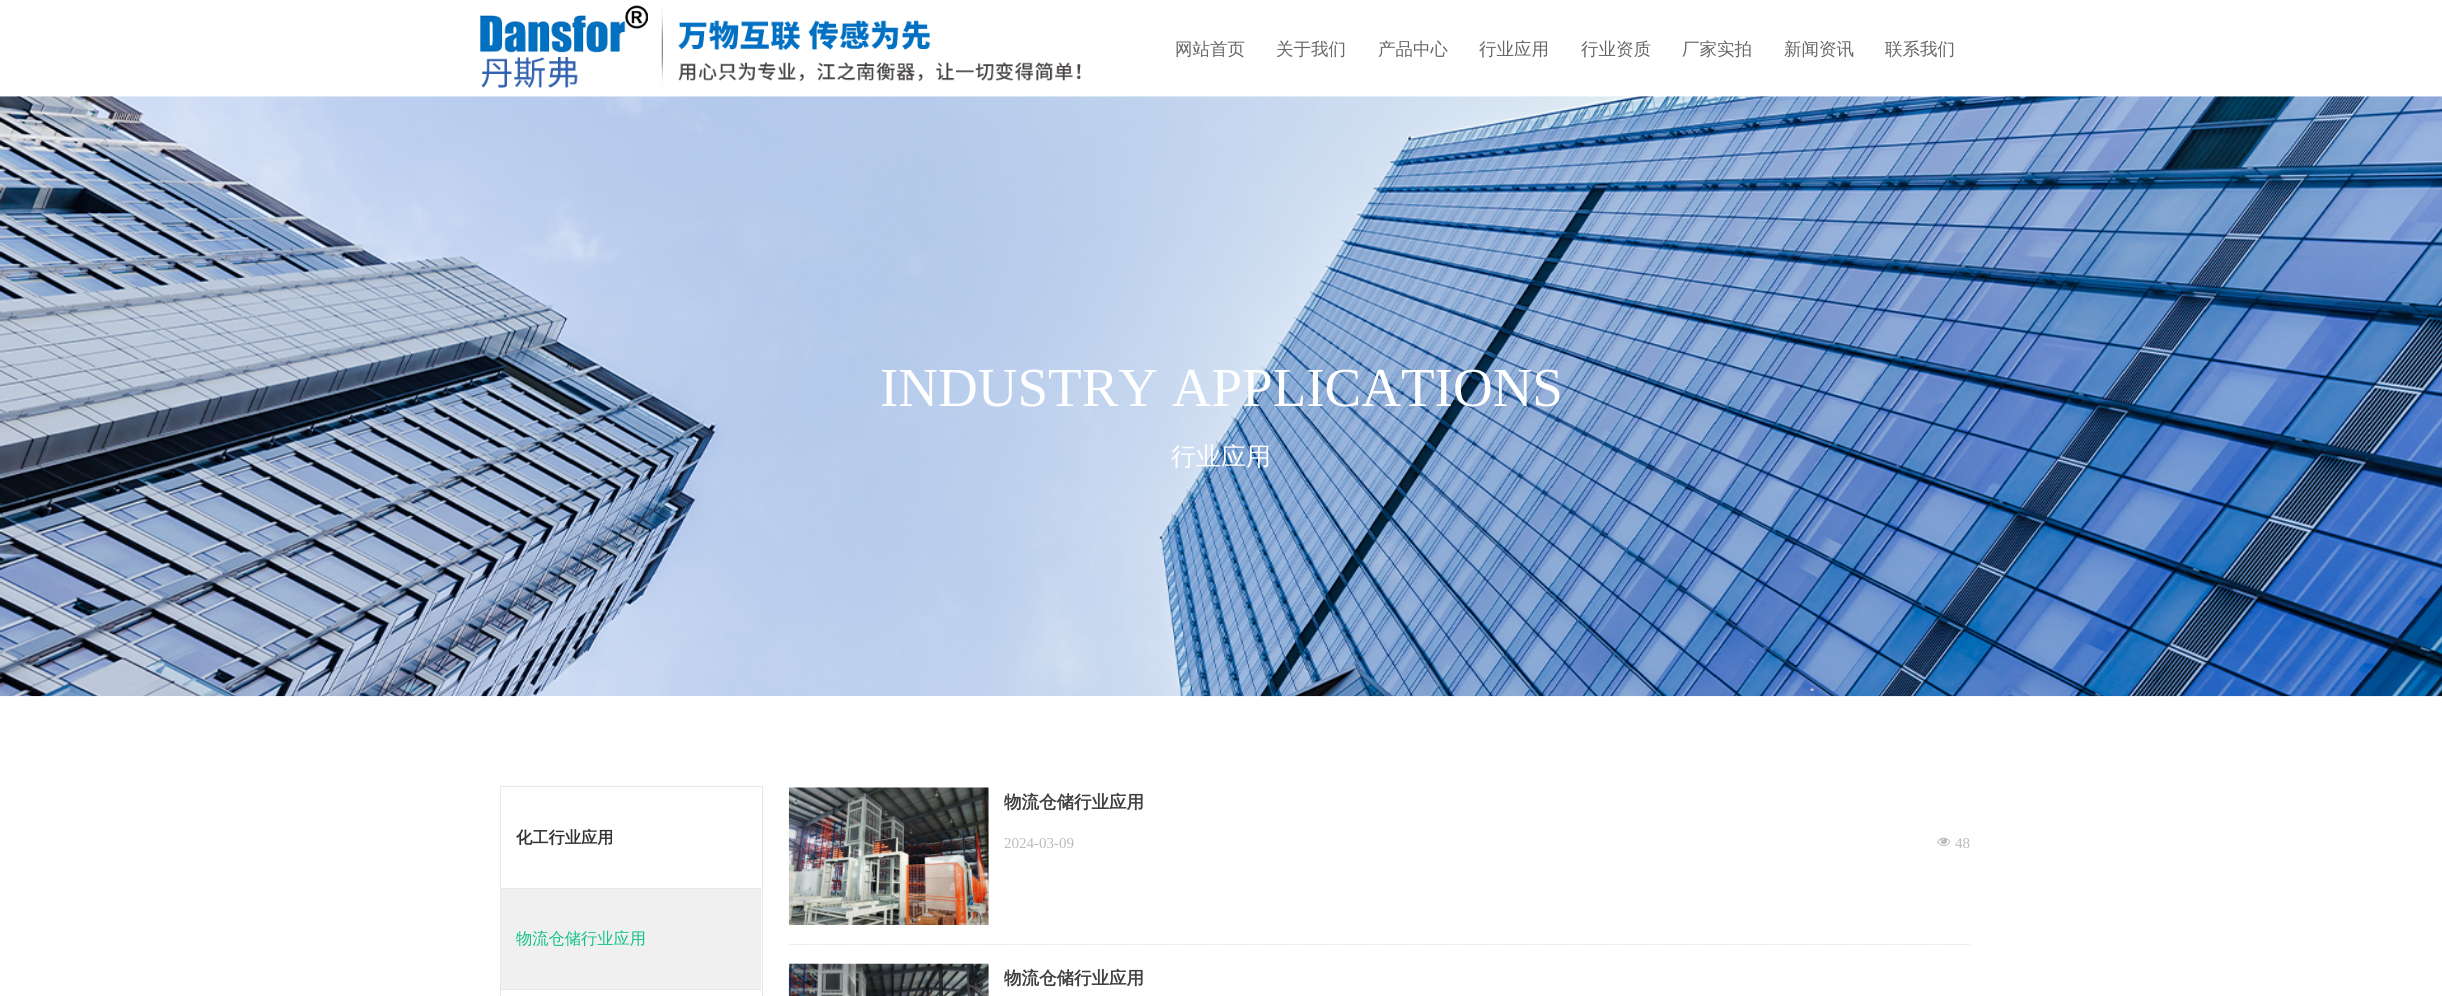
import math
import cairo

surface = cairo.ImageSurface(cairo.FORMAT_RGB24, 2442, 996)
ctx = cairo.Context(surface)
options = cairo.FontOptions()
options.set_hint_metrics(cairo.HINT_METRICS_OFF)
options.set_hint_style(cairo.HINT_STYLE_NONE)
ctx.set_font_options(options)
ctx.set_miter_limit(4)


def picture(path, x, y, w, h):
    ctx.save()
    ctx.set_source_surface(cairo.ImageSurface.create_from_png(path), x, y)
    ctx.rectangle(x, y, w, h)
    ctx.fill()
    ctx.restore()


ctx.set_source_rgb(1, 1, 1)
ctx.paint()
picture("img1.png", 480, 5, 601, 84)
ctx.select_font_face("WenQuanYi Zen Hei Medium")
ctx.set_font_size(17.5)
ctx.set_source_rgb(0.4, 0.4, 0.4)
ctx.move_to(1175, 55)
ctx.show_text("网站首页")
ctx.move_to(1276, 55)
ctx.show_text("关于我们")
ctx.move_to(1378, 55)
ctx.show_text("产品中心")
ctx.move_to(1479, 55)
ctx.show_text("行业应用")
ctx.move_to(1581, 55)
ctx.show_text("行业资质")
ctx.move_to(1682, 55)
ctx.show_text("厂家实拍")
ctx.move_to(1784, 55)
ctx.show_text("新闻资讯")
ctx.move_to(1885, 55)
ctx.show_text("联系我们")
picture("img2.png", 0, 96, 2442, 601)
ctx.select_font_face("Liberation Serif")
ctx.set_font_size(55)
ctx.set_source_rgb(1, 1, 1)
ctx.move_to(880, 406)
ctx.show_text("INDUSTRY APPLICATIONS")
ctx.select_font_face("WenQuanYi Zen Hei Medium")
ctx.set_font_size(25)
ctx.move_to(1171, 465)
ctx.show_text("行业应用")
ctx.rectangle(500.5, 786.5, 262, 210)
ctx.set_source_rgb(0.906, 0.906, 0.906)
ctx.set_line_width(1)
ctx.stroke()
ctx.select_font_face("WenQuanYi Zen Hei", cairo.FONT_SLANT_NORMAL, cairo.FONT_WEIGHT_BOLD)
ctx.set_font_size(16.25)
ctx.set_source_rgb(0.2, 0.2, 0.2)
ctx.move_to(516, 843)
ctx.show_text("化工行业应用")
ctx.set_source_rgb(0.941, 0.941, 0.941)
ctx.rectangle(501, 889, 260, 100)
ctx.fill()
ctx.set_source_rgb(0.906, 0.906, 0.906)
ctx.rectangle(501, 888, 260, 1)
ctx.fill()
ctx.select_font_face("WenQuanYi Zen Hei Medium")
ctx.set_source_rgb(0.078, 0.757, 0.529)
ctx.move_to(516, 944)
ctx.show_text("物流仓储行业应用")
ctx.set_source_rgb(0.906, 0.906, 0.906)
ctx.rectangle(501, 989, 260, 1)
ctx.fill()
ctx.new_path()
ctx.move_to(789, 944.5)
ctx.line_to(1970, 944.5)
ctx.set_source_rgb(0.867, 0.867, 0.867)
ctx.set_line_width(1.2)
ctx.set_dash([1.25, 1.25])
ctx.stroke()
picture("img3.png", 788, 787, 201, 138)
ctx.select_font_face("WenQuanYi Zen Hei", cairo.FONT_SLANT_NORMAL, cairo.FONT_WEIGHT_BOLD)
ctx.set_font_size(17.5)
ctx.set_source_rgb(0.251, 0.251, 0.251)
ctx.move_to(1004, 808)
ctx.show_text("物流仓储行业应用")
ctx.select_font_face("Liberation Serif")
ctx.set_font_size(15)
ctx.set_source_rgb(0.733, 0.733, 0.733)
ctx.move_to(1004, 848)
ctx.show_text("2024-03-09")
picture("img4.png", 1937, 837, 14, 9)
ctx.move_to(1955, 848)
ctx.show_text("48")
picture("img5.png", 788, 963, 201, 33)
ctx.select_font_face("WenQuanYi Zen Hei", cairo.FONT_SLANT_NORMAL, cairo.FONT_WEIGHT_BOLD)
ctx.set_font_size(17.5)
ctx.set_source_rgb(0.251, 0.251, 0.251)
ctx.move_to(1004, 984)
ctx.show_text("物流仓储行业应用")
surface.write_to_png("page.png")
